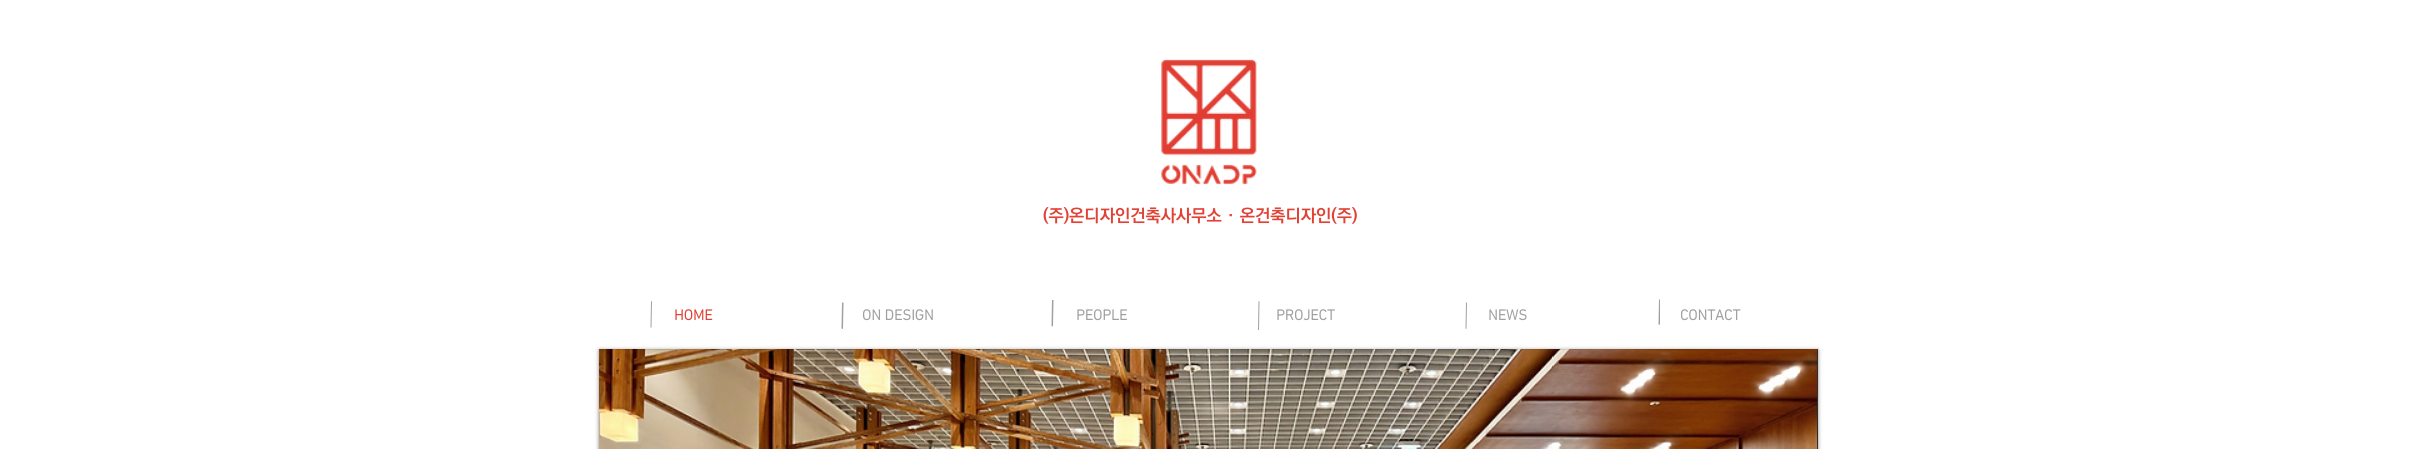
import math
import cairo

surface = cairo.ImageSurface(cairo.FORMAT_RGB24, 2418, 449)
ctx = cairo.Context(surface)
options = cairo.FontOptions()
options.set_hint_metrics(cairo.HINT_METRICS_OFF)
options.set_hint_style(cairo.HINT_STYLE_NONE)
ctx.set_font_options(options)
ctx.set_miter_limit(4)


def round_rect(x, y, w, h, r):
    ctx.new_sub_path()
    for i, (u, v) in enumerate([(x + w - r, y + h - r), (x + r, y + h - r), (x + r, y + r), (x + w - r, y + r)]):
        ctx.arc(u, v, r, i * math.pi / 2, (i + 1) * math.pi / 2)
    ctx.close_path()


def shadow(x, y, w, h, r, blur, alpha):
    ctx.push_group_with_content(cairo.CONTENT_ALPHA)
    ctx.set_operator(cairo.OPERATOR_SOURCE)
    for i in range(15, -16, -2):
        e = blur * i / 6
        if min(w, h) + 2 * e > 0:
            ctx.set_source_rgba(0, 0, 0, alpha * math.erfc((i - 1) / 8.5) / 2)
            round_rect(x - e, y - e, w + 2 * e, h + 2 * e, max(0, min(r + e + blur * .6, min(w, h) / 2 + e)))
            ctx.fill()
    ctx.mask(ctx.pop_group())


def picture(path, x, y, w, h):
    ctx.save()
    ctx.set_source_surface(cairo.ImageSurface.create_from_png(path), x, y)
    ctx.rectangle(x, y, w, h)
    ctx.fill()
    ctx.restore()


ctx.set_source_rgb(1, 1, 1)
ctx.paint()
picture("img1.png", 1161, 59, 96, 126)
ctx.select_font_face("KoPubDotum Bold", cairo.FONT_SLANT_NORMAL, cairo.FONT_WEIGHT_BOLD)
ctx.set_font_size(17.5)
ctx.set_source_rgb(0.878, 0.259, 0.212)
ctx.move_to(1043, 221)
ctx.show_text("(주)온디자인건축사사무소 · 온건축디자인(주)")
ctx.set_source_rgb(0.627, 0.627, 0.624)
ctx.new_path()
ctx.move_to(652, 301.5)
ctx.line_to(651.5, 327.5)
ctx.line_to(650.5, 327.5)
ctx.line_to(651, 301)
ctx.close_path()
ctx.fill()
ctx.new_path()
ctx.move_to(843.5, 302.5)
ctx.line_to(843, 329)
ctx.line_to(841.5, 328.5)
ctx.line_to(842, 302.5)
ctx.close_path()
ctx.fill()
ctx.new_path()
ctx.move_to(1053.5, 300)
ctx.line_to(1053, 326.5)
ctx.line_to(1051.5, 326)
ctx.line_to(1052, 300)
ctx.close_path()
ctx.fill()
ctx.new_path()
ctx.move_to(1259.5, 301.5)
ctx.line_to(1259, 330)
ctx.line_to(1258, 330)
ctx.line_to(1258.5, 301)
ctx.close_path()
ctx.fill()
ctx.new_path()
ctx.move_to(1467, 302.5)
ctx.line_to(1466.5, 329)
ctx.line_to(1465.5, 328.5)
ctx.line_to(1466, 302.5)
ctx.close_path()
ctx.fill()
ctx.new_path()
ctx.move_to(1660, 299.5)
ctx.line_to(1660, 324.5)
ctx.line_to(1658.5, 324.5)
ctx.line_to(1659, 299.5)
ctx.close_path()
ctx.fill()
ctx.select_font_face("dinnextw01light", cairo.FONT_SLANT_NORMAL, cairo.FONT_WEIGHT_BOLD)
ctx.set_font_size(15)
ctx.set_source_rgb(0.878, 0.259, 0.212)
ctx.move_to(674, 320)
ctx.show_text("HOME")
ctx.set_source_rgb(0.627, 0.627, 0.624)
ctx.move_to(862, 320)
ctx.show_text("ON DESIGN")
ctx.move_to(1076, 320)
ctx.show_text("PEOPLE")
ctx.move_to(1276, 320)
ctx.show_text("PROJECT")
ctx.move_to(1488, 320)
ctx.show_text("NEWS")
ctx.move_to(1680, 320)
ctx.show_text("CONTACT")
ctx.set_source_rgb(0, 0, 0)
shadow(599, 350, 1219, 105, 0, 2, 0.5)
ctx.set_source_rgb(0.184, 0.18, 0.18)
ctx.rectangle(599, 349, 1219, 100)
ctx.fill()
picture("img2.png", 599, 349, 1218, 100)
surface.write_to_png("page.png")
